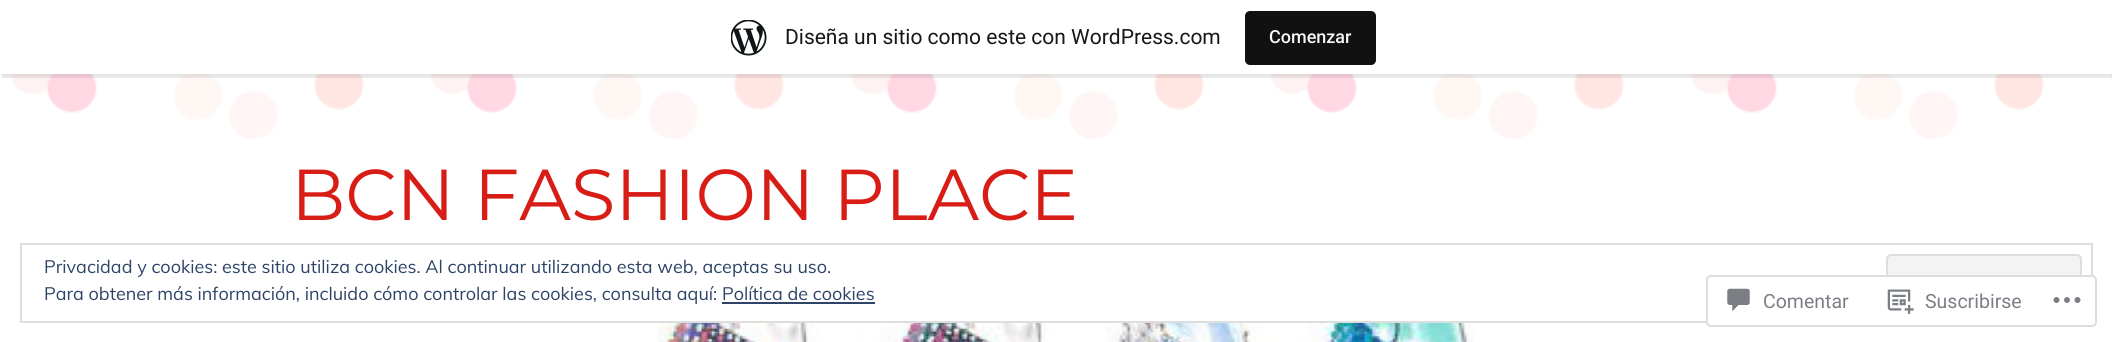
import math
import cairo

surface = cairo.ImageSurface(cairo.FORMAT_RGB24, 2112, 342)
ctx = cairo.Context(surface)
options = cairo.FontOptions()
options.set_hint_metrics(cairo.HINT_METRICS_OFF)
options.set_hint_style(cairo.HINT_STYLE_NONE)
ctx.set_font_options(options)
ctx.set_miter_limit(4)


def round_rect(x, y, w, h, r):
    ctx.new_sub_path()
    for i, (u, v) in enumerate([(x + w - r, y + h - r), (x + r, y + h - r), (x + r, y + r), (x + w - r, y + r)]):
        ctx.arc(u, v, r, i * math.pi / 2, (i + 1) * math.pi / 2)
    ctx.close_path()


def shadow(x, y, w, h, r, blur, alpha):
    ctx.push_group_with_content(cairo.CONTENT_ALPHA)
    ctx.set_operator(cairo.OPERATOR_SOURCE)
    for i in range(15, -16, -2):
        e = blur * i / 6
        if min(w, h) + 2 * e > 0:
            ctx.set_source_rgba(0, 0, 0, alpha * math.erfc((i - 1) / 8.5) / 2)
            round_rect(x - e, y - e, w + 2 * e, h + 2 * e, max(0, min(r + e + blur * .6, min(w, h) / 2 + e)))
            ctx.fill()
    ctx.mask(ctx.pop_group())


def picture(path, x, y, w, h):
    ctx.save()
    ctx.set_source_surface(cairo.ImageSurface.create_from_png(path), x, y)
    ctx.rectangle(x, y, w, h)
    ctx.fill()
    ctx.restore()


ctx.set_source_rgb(1, 1, 1)
ctx.paint()
picture("img2.png", 10, 74, 2102, 65)
ctx.set_source_rgb(0, 0, 0)
shadow(0, 2, 2112, 73, 0, 1.5, 0.05)
ctx.set_source_rgba(0, 0, 0, 0.08)
ctx.new_path()
ctx.move_to(2, 74)
ctx.line_to(2, 78)
ctx.line_to(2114, 78)
ctx.line_to(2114, 5)
ctx.line_to(2112, 5)
ctx.line_to(2112, 74)
ctx.close_path()
ctx.fill()
ctx.set_source_rgb(1, 1, 1)
ctx.rectangle(0, 1, 2112, 73)
ctx.fill()
picture("img1.png", 731, 20, 36, 36)
ctx.select_font_face("Roboto")
ctx.set_font_size(21)
ctx.set_source_rgb(0.09, 0.09, 0.09)
ctx.move_to(785, 44)
ctx.show_text("Diseña un sitio como este con WordPress.com")
ctx.set_source_rgb(0.067, 0.067, 0.067)
round_rect(1245, 11, 131, 54, 5)
ctx.fill()
ctx.select_font_face("Roboto Medium")
ctx.set_font_size(18)
ctx.set_source_rgb(0.965, 0.969, 0.969)
ctx.move_to(1269, 43)
ctx.show_text("Comenzar")
ctx.select_font_face("Montserrat")
ctx.set_font_size(72)
ctx.set_source_rgb(0.847, 0.114, 0.086)
ctx.move_to(291, 220)
ctx.show_text("BCN FASHION PLACE")
picture("img3.png", 656, 323, 820, 19)
ctx.rectangle(21, 244, 2071, 78)
ctx.set_source_rgb(0.871, 0.871, 0.871)
ctx.stroke()
ctx.select_font_face("Muli")
ctx.set_font_size(18)
ctx.set_source_rgb(0.18, 0.267, 0.404)
ctx.move_to(44, 273)
ctx.show_text("Privacidad y cookies: este sitio utiliza cookies. Al continuar utilizando esta web, aceptas su uso.")
ctx.set_source_rgb(0.953, 0.953, 0.953)
round_rect(1887, 255, 194, 56, 4)
ctx.fill_preserve()
ctx.set_source_rgb(0.871, 0.871, 0.871)
ctx.stroke()
ctx.set_source_rgb(0.18, 0.267, 0.404)
ctx.move_to(44, 300)
ctx.show_text("Para obtener más información, incluido cómo controlar las cookies, consulta aquí: Política de cookies")
ctx.rectangle(722, 302, 153, 2)
ctx.fill()
ctx.set_source_rgba(1, 1, 1, 0.98)
round_rect(1706, 275, 391, 52, 5)
ctx.fill()
round_rect(1707, 276, 389, 50, 4)
ctx.set_source_rgba(0.863, 0.863, 0.871, 0.98)
ctx.stroke()
picture("img4.png", 1727, 288, 23, 24)
ctx.select_font_face("Roboto")
ctx.set_font_size(19.5)
ctx.set_source_rgb(0.482, 0.498, 0.522)
ctx.move_to(1763, 308)
ctx.show_text("Comentar")
picture("img5.png", 1887, 289, 27, 25)
ctx.move_to(1925, 308)
ctx.show_text("Suscribirse")
picture("img6.png", 2053, 297, 28, 6)
surface.write_to_png("page.png")
